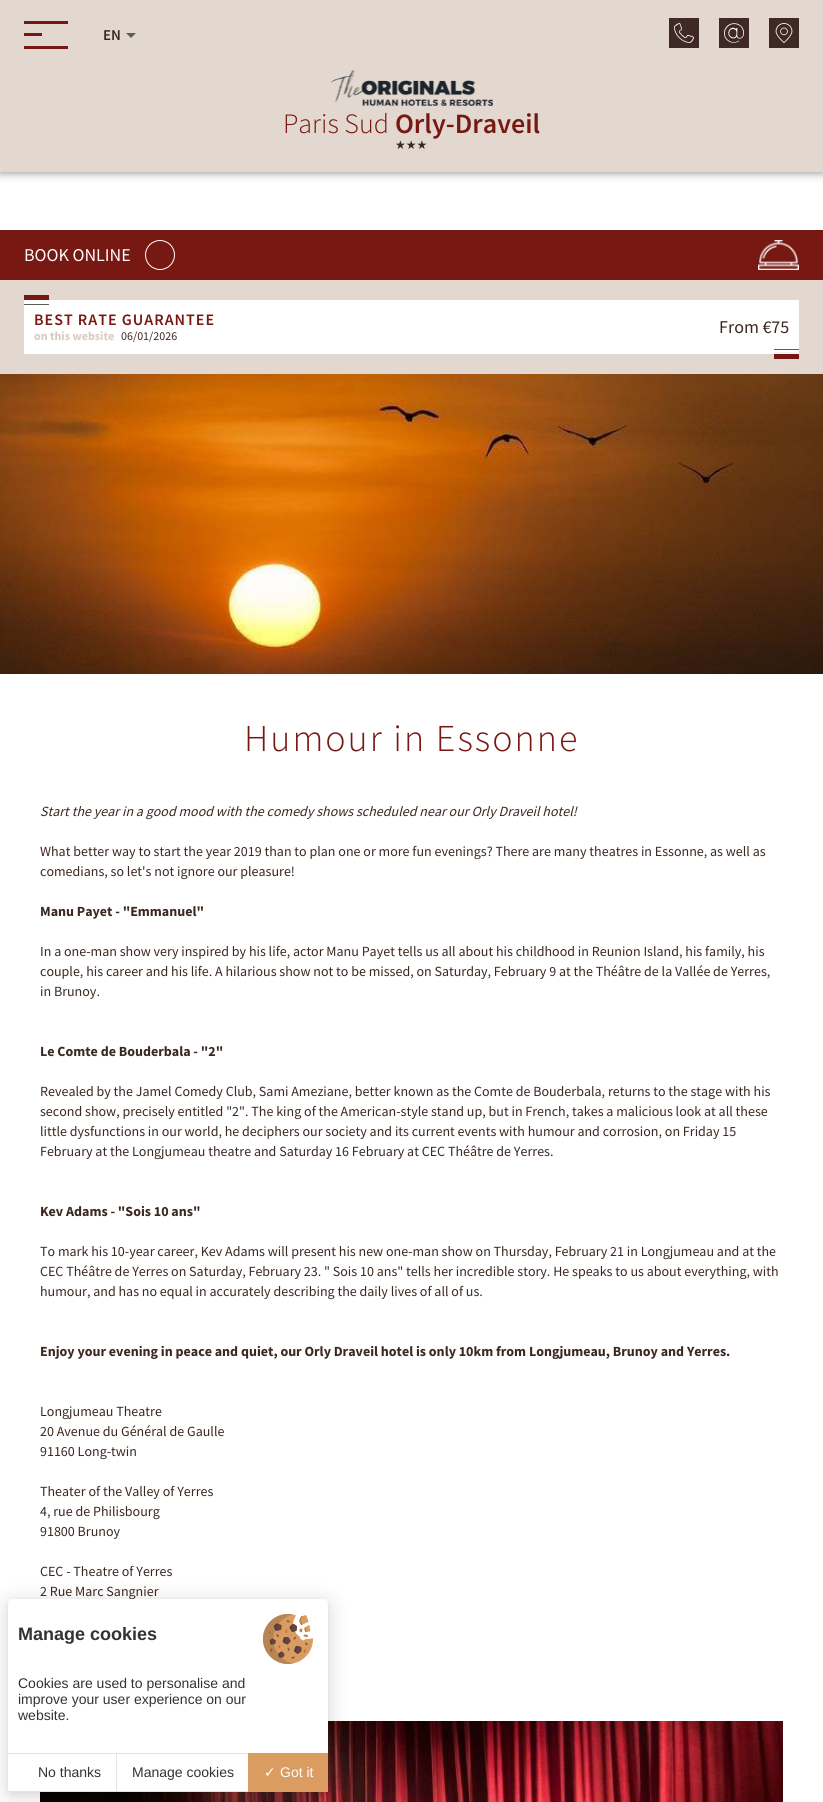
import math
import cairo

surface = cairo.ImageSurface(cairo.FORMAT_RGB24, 823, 1802)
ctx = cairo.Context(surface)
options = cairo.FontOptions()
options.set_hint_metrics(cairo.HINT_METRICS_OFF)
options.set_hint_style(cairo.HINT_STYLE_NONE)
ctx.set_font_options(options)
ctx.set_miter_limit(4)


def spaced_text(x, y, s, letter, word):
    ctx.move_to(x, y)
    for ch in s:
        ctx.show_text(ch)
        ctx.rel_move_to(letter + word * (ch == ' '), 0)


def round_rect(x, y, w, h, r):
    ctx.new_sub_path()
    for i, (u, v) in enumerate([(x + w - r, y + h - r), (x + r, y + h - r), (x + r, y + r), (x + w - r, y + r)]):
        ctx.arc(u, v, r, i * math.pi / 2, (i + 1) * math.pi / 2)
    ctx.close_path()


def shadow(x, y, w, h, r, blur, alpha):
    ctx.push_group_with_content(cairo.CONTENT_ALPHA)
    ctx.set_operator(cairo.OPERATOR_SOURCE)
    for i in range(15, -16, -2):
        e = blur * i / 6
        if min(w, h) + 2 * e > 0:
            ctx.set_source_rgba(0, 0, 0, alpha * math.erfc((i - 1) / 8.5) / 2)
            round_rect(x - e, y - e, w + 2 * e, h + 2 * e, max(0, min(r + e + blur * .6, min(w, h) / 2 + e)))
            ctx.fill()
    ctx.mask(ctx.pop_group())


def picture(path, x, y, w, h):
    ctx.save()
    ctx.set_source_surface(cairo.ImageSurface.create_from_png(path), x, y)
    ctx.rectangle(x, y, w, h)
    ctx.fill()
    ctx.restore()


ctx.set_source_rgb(1, 1, 1)
ctx.paint()
ctx.set_source_rgb(0, 0, 0)
shadow(0, 0, 823, 172, 0, 5, 0.5)
ctx.set_source_rgb(0.886, 0.847, 0.812)
ctx.rectangle(0, 0, 823, 172)
ctx.fill()
ctx.set_source_rgb(0.467, 0.094, 0.071)
ctx.rectangle(24, 21, 44, 3)
ctx.fill()
ctx.rectangle(24, 33, 18, 3)
ctx.fill()
ctx.rectangle(24, 46, 44, 3)
ctx.fill()
ctx.select_font_face("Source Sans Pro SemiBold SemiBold")
ctx.set_font_size(15)
ctx.set_source_rgb(0.231, 0.157, 0.129)
ctx.move_to(103, 40)
ctx.show_text("EN")
ctx.set_source_rgb(0.361, 0.369, 0.286)
ctx.new_path()
ctx.move_to(136, 33)
ctx.line_to(126, 33)
ctx.line_to(131, 38)
ctx.close_path()
ctx.fill()
ctx.set_source_rgb(0.243, 0.161, 0.141)
ctx.rectangle(669, 18, 30, 30)
ctx.fill()
picture("img1.png", 674, 23, 20, 20)
ctx.rectangle(719, 18, 30, 30)
ctx.fill()
picture("img2.png", 724, 23, 20, 20)
ctx.rectangle(769, 18, 30, 30)
ctx.fill()
picture("img3.png", 775, 23, 18, 20)
picture("img4.png", 330, 70, 163, 36)
ctx.select_font_face("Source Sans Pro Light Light")
ctx.set_font_size(28)
ctx.set_source_rgb(0.467, 0.094, 0.071)
ctx.move_to(283, 133)
ctx.show_text("Paris Sud")
ctx.select_font_face("Source Sans Pro SemiBold SemiBold")
ctx.move_to(395, 133)
ctx.show_text("Orly-Draveil")
ctx.select_font_face("DejaVu Sans")
ctx.set_font_size(12)
ctx.set_source_rgb(0.231, 0.157, 0.129)
ctx.move_to(395, 149)
ctx.show_text("★★★")
ctx.set_source_rgb(0.886, 0.847, 0.812)
ctx.rectangle(0, 280, 823, 94)
ctx.fill()
ctx.set_source_rgb(0.467, 0.094, 0.071)
ctx.rectangle(0, 230, 823, 50)
ctx.fill()
ctx.select_font_face("Source Sans Pro")
ctx.set_font_size(18)
ctx.set_source_rgb(1, 1, 1)
ctx.move_to(24, 261)
ctx.show_text("BOOK ONLINE")
ctx.new_path()
ctx.arc(160, 255, 14.5, 0, 2 * math.pi)
ctx.set_line_width(1)
ctx.stroke()
picture("img5.png", 758, 240, 41, 30)
ctx.rectangle(24, 300, 775, 54)
ctx.fill()
picture("img6.png", 24, 295, 25, 10)
ctx.select_font_face("Source Sans Pro SemiBold SemiBold")
ctx.set_font_size(16)
ctx.set_source_rgb(0.467, 0.094, 0.071)
spaced_text(34, 325, "BEST RATE GUARANTEE", 1, 0)
ctx.select_font_face("Source Sans Pro")
ctx.set_font_size(18)
ctx.set_source_rgb(0.231, 0.157, 0.129)
ctx.move_to(719, 333)
ctx.show_text("From €75")
ctx.select_font_face("Source Sans Pro", cairo.FONT_SLANT_NORMAL, cairo.FONT_WEIGHT_BOLD)
ctx.set_font_size(12)
ctx.set_source_rgb(0.843, 0.796, 0.757)
ctx.move_to(34, 340)
ctx.show_text("on this website")
ctx.select_font_face("Source Sans Pro")
ctx.set_source_rgb(0.231, 0.157, 0.129)
ctx.move_to(121, 340)
ctx.show_text("06/01/2026")
picture("img7.png", 774, 349, 25, 10)
picture("img8.png", 0, 374, 823, 300)
ctx.select_font_face("Source Sans Pro Light Light")
ctx.set_font_size(38)
ctx.set_source_rgb(0.467, 0.094, 0.071)
spaced_text(244, 751, "Humour in Essonne", 2, 0)
ctx.select_font_face("Source Sans Pro", cairo.FONT_SLANT_ITALIC)
ctx.set_font_size(14)
ctx.set_source_rgb(0.231, 0.157, 0.129)
ctx.move_to(40, 816)
ctx.show_text("Start the year in a good mood with the comedy shows scheduled near our Orly Draveil hotel!")
ctx.select_font_face("Source Sans Pro")
ctx.move_to(40, 856)
ctx.show_text("What better way to start the year 2019 than to plan one or more fun evenings? There are many theatres in Essonne, as well as")
ctx.move_to(40, 876)
ctx.show_text("comedians, so let's not ignore our pleasure!")
ctx.select_font_face("Source Sans Pro", cairo.FONT_SLANT_NORMAL, cairo.FONT_WEIGHT_BOLD)
ctx.move_to(40, 916)
ctx.show_text("Manu Payet - \"Emmanuel\"")
ctx.select_font_face("Source Sans Pro")
ctx.move_to(40, 956)
ctx.show_text("In a one-man show very inspired by his life, actor Manu Payet tells us all about his childhood in Reunion Island, his family, his")
ctx.move_to(40, 976)
ctx.show_text("couple, his career and his life. A hilarious show not to be missed, on Saturday, February 9 at the Théâtre de la Vallée de Yerres,")
ctx.move_to(40, 996)
ctx.show_text("in Brunoy.")
ctx.select_font_face("Source Sans Pro", cairo.FONT_SLANT_NORMAL, cairo.FONT_WEIGHT_BOLD)
ctx.move_to(40, 1056)
ctx.show_text("Le Comte de Bouderbala - \"2\"")
ctx.select_font_face("Source Sans Pro")
ctx.move_to(40, 1096)
ctx.show_text("Revealed by the Jamel Comedy Club, Sami Ameziane, better known as the Comte de Bouderbala, returns to the stage with his")
ctx.move_to(40, 1116)
ctx.show_text("second show, precisely entitled \"2\". The king of the American-style stand up, but in French, takes a malicious look at all these")
ctx.move_to(40, 1136)
ctx.show_text("little dysfunctions in our world, he deciphers our society and its current events with humour and corrosion, on Friday 15")
ctx.move_to(40, 1156)
ctx.show_text("February at the Longjumeau theatre and Saturday 16 February at CEC Théâtre de Yerres.")
ctx.select_font_face("Source Sans Pro", cairo.FONT_SLANT_NORMAL, cairo.FONT_WEIGHT_BOLD)
ctx.move_to(40, 1216)
ctx.show_text("Kev Adams - \"Sois 10 ans\"")
ctx.select_font_face("Source Sans Pro")
ctx.move_to(40, 1256)
ctx.show_text("To mark his 10-year career, Kev Adams will present his new one-man show on Thursday, February 21 in Longjumeau and at the")
ctx.move_to(40, 1276)
ctx.show_text("CEC Théâtre de Yerres on Saturday, February 23. \" Sois 10 ans\" tells her incredible story. He speaks to us about everything, with")
ctx.move_to(40, 1296)
ctx.show_text("humour, and has no equal in accurately describing the daily lives of all of us.")
ctx.select_font_face("Source Sans Pro", cairo.FONT_SLANT_NORMAL, cairo.FONT_WEIGHT_BOLD)
ctx.move_to(40, 1356)
ctx.show_text("Enjoy your evening in peace and quiet, our Orly Draveil hotel is only 10km from Longjumeau, Brunoy and Yerres.")
ctx.select_font_face("Source Sans Pro")
ctx.move_to(40, 1416)
ctx.show_text("Longjumeau Theatre")
ctx.move_to(40, 1436)
ctx.show_text("20 Avenue du Général de Gaulle")
ctx.move_to(40, 1456)
ctx.show_text("91160 Long-twin")
ctx.move_to(40, 1496)
ctx.show_text("Theater of the Valley of Yerres")
ctx.move_to(40, 1516)
ctx.show_text("4, rue de Philisbourg")
ctx.move_to(40, 1536)
ctx.show_text("91800 Brunoy")
ctx.move_to(40, 1576)
ctx.show_text("CEC - Theatre of Yerres")
ctx.move_to(40, 1596)
ctx.show_text("2 Rue Marc Sangnier")
picture("img9.png", 40, 1721, 743, 81)
ctx.set_source_rgb(0, 0, 0)
shadow(8, 1601, 320, 193, 5, 3, 0.05)
shadow(8, 1603, 320, 193, 5, 12, 0.15)
ctx.set_source_rgb(1, 1, 1)
ctx.new_path()
ctx.move_to(13, 1599)
ctx.line_to(323, 1599)
ctx.curve_to(326, 1599, 328, 1601, 328, 1604)
ctx.line_to(328, 1792)
ctx.line_to(8, 1792)
ctx.line_to(8, 1604)
ctx.curve_to(8, 1601, 10, 1599, 13, 1599)
ctx.close_path()
ctx.fill()
picture("img10.png", 263, 1614, 50, 50)
ctx.select_font_face("Liberation Sans", cairo.FONT_SLANT_NORMAL, cairo.FONT_WEIGHT_BOLD)
ctx.set_font_size(18)
ctx.set_source_rgb(0.2, 0.2, 0.2)
ctx.move_to(18, 1640)
ctx.show_text("Manage cookies")
ctx.select_font_face("Liberation Sans")
ctx.set_font_size(14)
ctx.move_to(18, 1688)
ctx.show_text("Cookies are used to personalise and")
ctx.move_to(18, 1704)
ctx.show_text("improve your user experience on our")
ctx.move_to(18, 1720)
ctx.show_text("website.")
ctx.set_source_rgb(0.91, 0.89, 0.89)
ctx.rectangle(8, 1753, 240, 1)
ctx.fill()
ctx.rectangle(8, 1791, 240, 1)
ctx.fill()
ctx.set_source_rgb(0.2, 0.2, 0.2)
ctx.move_to(38, 1777)
ctx.show_text("No thanks")
ctx.set_source_rgb(0.91, 0.89, 0.89)
ctx.rectangle(116, 1753, 1, 39)
ctx.fill()
ctx.set_source_rgb(0.2, 0.2, 0.2)
ctx.move_to(132, 1777)
ctx.show_text("Manage cookies")
ctx.set_source_rgb(0.855, 0.612, 0.38)
ctx.rectangle(248, 1753, 80, 39)
ctx.fill()
ctx.select_font_face("DejaVu Sans")
ctx.set_source_rgb(1, 1, 1)
ctx.move_to(264, 1777)
ctx.show_text("✓")
ctx.select_font_face("Liberation Sans")
ctx.move_to(280, 1777)
ctx.show_text("Got it")
surface.write_to_png("page.png")
